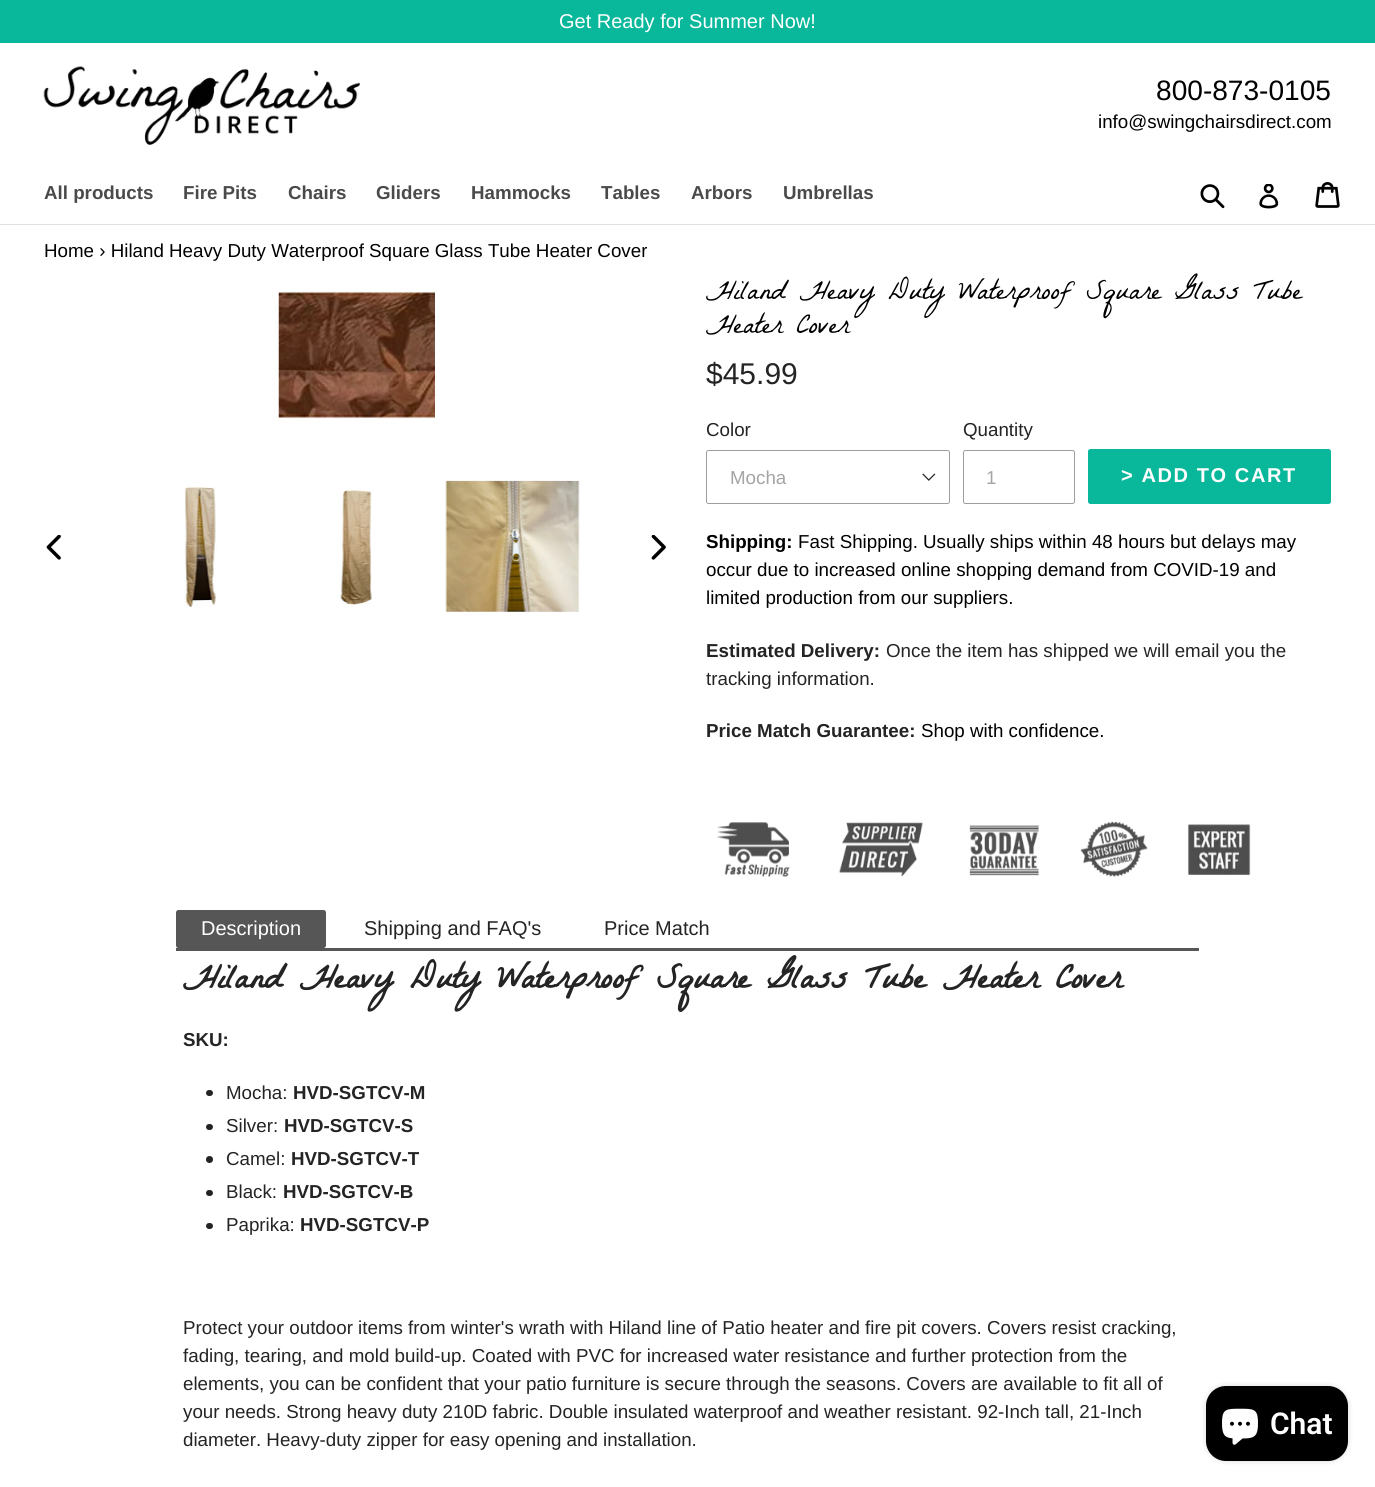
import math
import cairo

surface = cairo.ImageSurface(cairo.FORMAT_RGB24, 1375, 1487)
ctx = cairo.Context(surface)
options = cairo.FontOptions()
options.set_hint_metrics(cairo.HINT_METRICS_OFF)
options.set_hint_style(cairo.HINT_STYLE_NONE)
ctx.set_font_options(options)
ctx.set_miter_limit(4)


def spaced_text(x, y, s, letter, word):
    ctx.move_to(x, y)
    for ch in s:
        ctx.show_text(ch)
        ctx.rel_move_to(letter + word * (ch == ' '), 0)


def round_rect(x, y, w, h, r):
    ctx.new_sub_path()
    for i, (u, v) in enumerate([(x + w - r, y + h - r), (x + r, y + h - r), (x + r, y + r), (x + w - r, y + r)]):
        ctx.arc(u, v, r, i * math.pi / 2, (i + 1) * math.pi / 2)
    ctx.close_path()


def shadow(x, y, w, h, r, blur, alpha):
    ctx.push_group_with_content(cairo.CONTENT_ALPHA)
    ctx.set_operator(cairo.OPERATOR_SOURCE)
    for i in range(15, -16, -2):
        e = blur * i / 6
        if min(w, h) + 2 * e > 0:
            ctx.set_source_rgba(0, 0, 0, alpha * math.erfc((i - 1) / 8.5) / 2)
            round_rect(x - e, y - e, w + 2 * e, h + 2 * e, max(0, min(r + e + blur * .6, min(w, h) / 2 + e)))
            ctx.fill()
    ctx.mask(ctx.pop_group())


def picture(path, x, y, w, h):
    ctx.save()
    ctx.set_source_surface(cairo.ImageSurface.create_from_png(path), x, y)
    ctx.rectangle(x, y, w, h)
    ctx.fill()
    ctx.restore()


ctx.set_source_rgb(1, 1, 1)
ctx.paint()
ctx.set_source_rgb(0.039, 0.718, 0.608)
ctx.rectangle(0, 0, 1375, 43)
ctx.fill()
ctx.select_font_face("Liberation Sans")
ctx.set_font_size(20)
ctx.set_source_rgb(1, 1, 1)
ctx.move_to(559, 28)
ctx.show_text("Get Ready for Summer Now!")
ctx.set_source_rgb(0.882, 0.882, 0.882)
ctx.rectangle(0, 224, 1375, 1)
ctx.fill()
picture("img1.png", 43, 66, 317, 79)
ctx.set_font_size(28.1)
ctx.set_source_rgb(0, 0, 0)
ctx.move_to(1156, 100)
ctx.show_text("800-873-0105")
ctx.set_font_size(18.75)
ctx.move_to(1098, 128)
ctx.show_text("info@swingchairsdirect.com")
ctx.select_font_face("Liberation Sans", cairo.FONT_SLANT_NORMAL, cairo.FONT_WEIGHT_BOLD)
ctx.set_source_rgb(0.29, 0.29, 0.29)
ctx.move_to(44, 199)
ctx.show_text("All products")
ctx.move_to(183, 199)
ctx.show_text("Fire Pits")
ctx.move_to(288, 199)
ctx.show_text("Chairs")
ctx.move_to(376, 199)
ctx.show_text("Gliders")
ctx.move_to(471, 199)
ctx.show_text("Hammocks")
ctx.move_to(601, 199)
ctx.show_text("Tables")
ctx.move_to(691, 199)
ctx.show_text("Arbors")
ctx.move_to(783, 199)
ctx.show_text("Umbrellas")
picture("img2.png", 1200, 184, 25, 25)
picture("img3.png", 1259, 184, 20, 25)
picture("img4.png", 1315, 182, 25, 26)
ctx.select_font_face("Liberation Sans")
ctx.set_source_rgb(0, 0, 0)
ctx.move_to(44, 257)
ctx.show_text("Home › Hiland Heavy Duty Waterproof Square Glass Tube Heater Cover")
picture("img5.png", 278, 291, 157, 128)
picture("img6.png", 46, 535, 15, 25)
picture("img7.png", 184, 487, 33, 120)
picture("img8.png", 340, 490, 32, 115)
picture("img9.png", 445, 480, 135, 133)
picture("img10.png", 651, 535, 15, 25)
ctx.select_font_face("La Belle Aurore")
ctx.set_font_size(28.1)
ctx.move_to(706, 299)
ctx.show_text("Hiland Heavy Duty Waterproof Square Glass Tube")
ctx.move_to(706, 333)
ctx.show_text("Heater Cover")
ctx.select_font_face("Liberation Sans")
ctx.set_font_size(30)
ctx.set_source_rgb(0.141, 0.141, 0.141)
ctx.move_to(706, 384)
ctx.show_text("$45.99")
ctx.set_font_size(18.75)
ctx.move_to(706, 436)
ctx.show_text("Color")
picture("img11.png", 922, 473, 14, 8)
round_rect(706.5, 450.5, 243, 53, 2)
ctx.set_source_rgb(0.616, 0.616, 0.616)
ctx.set_line_width(1)
ctx.stroke()
ctx.set_source_rgb(0.643, 0.643, 0.643)
ctx.move_to(730, 484)
ctx.show_text("Mocha")
ctx.set_source_rgb(0.141, 0.141, 0.141)
ctx.move_to(963, 436)
ctx.show_text("Quantity")
round_rect(963.5, 450.5, 111, 53, 2)
ctx.set_source_rgb(0.616, 0.616, 0.616)
ctx.stroke()
ctx.set_source_rgb(0.643, 0.643, 0.643)
ctx.move_to(986, 484)
ctx.show_text("1")
ctx.set_source_rgb(0.039, 0.718, 0.608)
round_rect(1088, 449, 243, 55, 2.5)
ctx.fill()
ctx.select_font_face("Liberation Sans", cairo.FONT_SLANT_NORMAL, cairo.FONT_WEIGHT_BOLD)
ctx.set_font_size(20)
ctx.set_source_rgb(1, 1, 1)
spaced_text(1121, 482, "> ADD TO CART", 1.6, 0)
ctx.set_font_size(18.75)
ctx.set_source_rgb(0, 0, 0)
ctx.move_to(706, 548)
ctx.show_text("Shipping:")
ctx.select_font_face("Liberation Sans")
ctx.move_to(798, 548)
ctx.show_text("Fast Shipping. Usually ships within 48 hours but delays may")
ctx.move_to(706, 576)
ctx.show_text("occur due to increased online shopping demand from COVID-19 and")
ctx.move_to(706, 604)
ctx.show_text("limited production from our suppliers.")
ctx.select_font_face("Liberation Sans", cairo.FONT_SLANT_NORMAL, cairo.FONT_WEIGHT_BOLD)
ctx.set_source_rgb(0.141, 0.141, 0.141)
ctx.move_to(706, 657)
ctx.show_text("Estimated Delivery:")
ctx.select_font_face("Liberation Sans")
ctx.move_to(886, 657)
ctx.show_text("Once the item has shipped we will email you the")
ctx.move_to(706, 685)
ctx.show_text("tracking information.")
ctx.select_font_face("Liberation Sans", cairo.FONT_SLANT_NORMAL, cairo.FONT_WEIGHT_BOLD)
ctx.move_to(706, 737)
ctx.show_text("Price Match Guarantee:")
ctx.select_font_face("Liberation Sans")
ctx.set_source_rgb(0, 0, 0)
ctx.move_to(921, 737)
ctx.show_text("Shop with confidence.")
picture("img12.png", 717, 821, 534, 56)
ctx.set_source_rgb(0.337, 0.337, 0.337)
ctx.rectangle(176, 948, 1023, 3)
ctx.fill()
round_rect(176, 910, 150, 38, 2.5)
ctx.fill()
ctx.set_font_size(20)
ctx.set_source_rgb(1, 1, 1)
ctx.move_to(201, 935)
ctx.show_text("Description")
ctx.set_source_rgb(0.141, 0.141, 0.141)
ctx.move_to(364, 935)
ctx.show_text("Shipping and FAQ's")
ctx.move_to(604, 935)
ctx.show_text("Price Match")
ctx.select_font_face("La Belle Aurore", cairo.FONT_SLANT_NORMAL, cairo.FONT_WEIGHT_BOLD)
ctx.set_font_size(35)
ctx.move_to(183, 988)
ctx.show_text("Hiland Heavy Duty Waterproof Square Glass Tube Heater Cover")
ctx.select_font_face("Liberation Sans", cairo.FONT_SLANT_NORMAL, cairo.FONT_WEIGHT_BOLD)
ctx.set_font_size(18.75)
ctx.move_to(183, 1046)
ctx.show_text("SKU:")
round_rect(206, 1090, 7, 6, 3)
ctx.fill()
ctx.select_font_face("Liberation Sans")
ctx.move_to(226, 1099)
ctx.show_text("Mocha:")
ctx.select_font_face("Liberation Sans", cairo.FONT_SLANT_NORMAL, cairo.FONT_WEIGHT_BOLD)
ctx.move_to(293, 1099)
ctx.show_text("HVD-SGTCV-M")
round_rect(206, 1124, 7, 6, 3)
ctx.fill()
ctx.select_font_face("Liberation Sans")
ctx.move_to(226, 1132)
ctx.show_text("Silver:")
ctx.select_font_face("Liberation Sans", cairo.FONT_SLANT_NORMAL, cairo.FONT_WEIGHT_BOLD)
ctx.move_to(284, 1132)
ctx.show_text("HVD-SGTCV-S")
ctx.new_path()
ctx.arc(209.5, 1159.5, 3.5, 0, 2 * math.pi)
ctx.fill()
ctx.select_font_face("Liberation Sans")
ctx.move_to(226, 1165)
ctx.show_text("Camel:")
ctx.select_font_face("Liberation Sans", cairo.FONT_SLANT_NORMAL, cairo.FONT_WEIGHT_BOLD)
ctx.move_to(291, 1165)
ctx.show_text("HVD-SGTCV-T")
round_rect(206, 1190, 7, 6, 3)
ctx.fill()
ctx.select_font_face("Liberation Sans")
ctx.move_to(226, 1198)
ctx.show_text("Black:")
ctx.select_font_face("Liberation Sans", cairo.FONT_SLANT_NORMAL, cairo.FONT_WEIGHT_BOLD)
ctx.move_to(283, 1198)
ctx.show_text("HVD-SGTCV-B")
round_rect(206, 1223, 7, 6, 3)
ctx.fill()
ctx.select_font_face("Liberation Sans")
ctx.move_to(226, 1231)
ctx.show_text("Paprika:")
ctx.select_font_face("Liberation Sans", cairo.FONT_SLANT_NORMAL, cairo.FONT_WEIGHT_BOLD)
ctx.move_to(300, 1231)
ctx.show_text("HVD-SGTCV-P")
ctx.select_font_face("Liberation Sans")
ctx.move_to(183, 1334)
ctx.show_text("Protect your outdoor items from winter's wrath with Hiland line of Patio heater and fire pit covers. Covers resist cracking,")
ctx.move_to(183, 1362)
ctx.show_text("fading, tearing, and mold build-up. Coated with PVC for increased water resistance and further protection from the")
ctx.move_to(183, 1390)
ctx.show_text("elements, you can be confident that your patio furniture is secure through the seasons. Covers are available to fit all of")
ctx.move_to(183, 1418)
ctx.show_text("your needs. Strong heavy duty 210D fabric. Double insulated waterproof and weather resistant. 92-Inch tall, 21-Inch")
ctx.move_to(183, 1446)
ctx.show_text("diameter. Heavy-duty zipper for easy opening and installation.")
ctx.set_source_rgb(0, 0, 0)
shadow(1206, 1386, 142, 75, 20, 3, 0.15)
ctx.set_source_rgb(0, 0, 0)
round_rect(1206, 1386, 142, 75, 20)
ctx.fill()
picture("img13.png", 1222, 1408, 36, 37)
ctx.select_font_face("Roboto SemiBold")
ctx.set_font_size(30)
ctx.set_source_rgb(1, 1, 1)
ctx.move_to(1270, 1434)
ctx.show_text("Chat")
surface.write_to_png("page.png")
